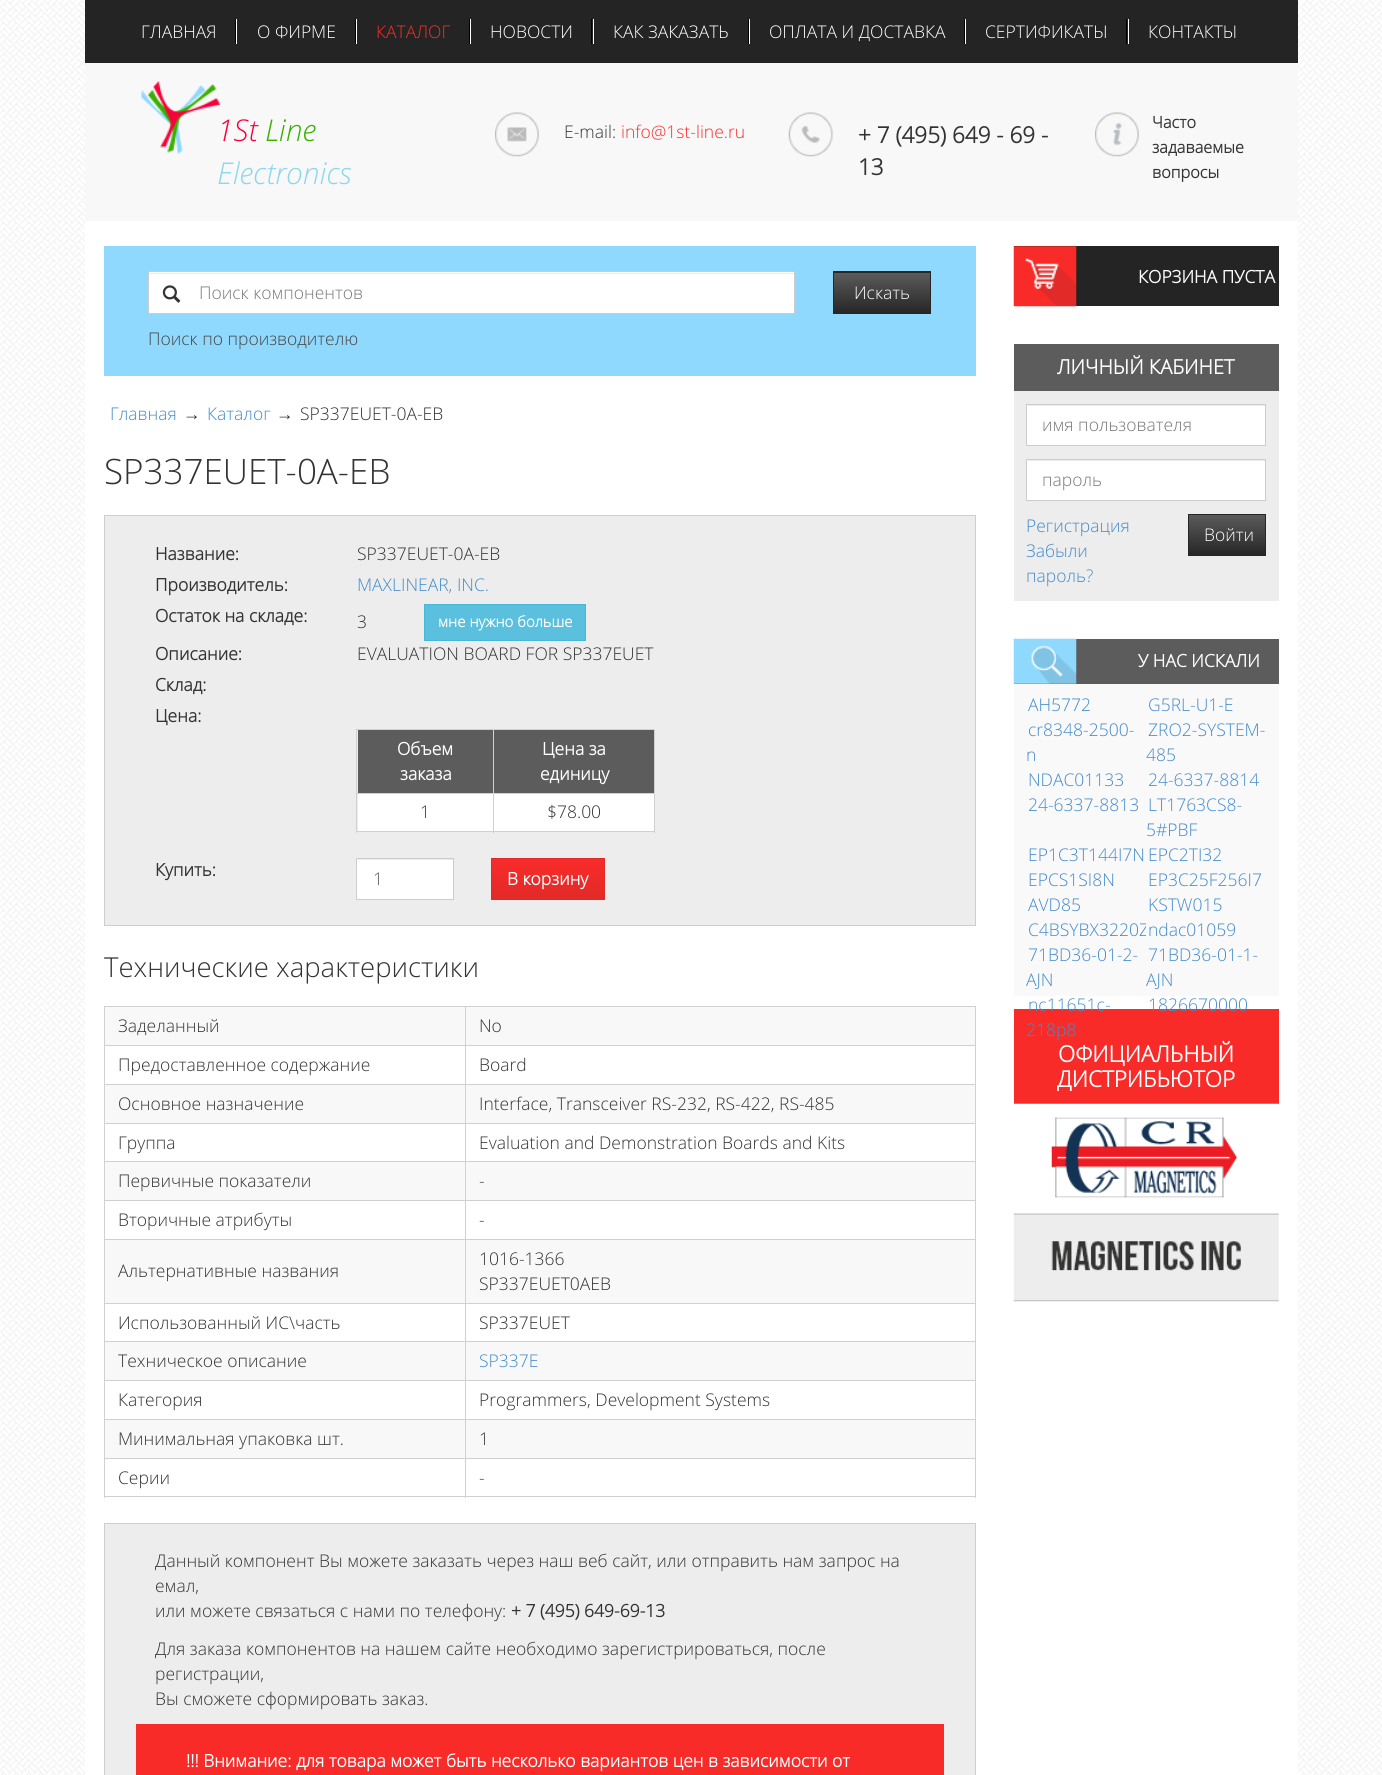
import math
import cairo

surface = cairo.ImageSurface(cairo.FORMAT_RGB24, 1382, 1775)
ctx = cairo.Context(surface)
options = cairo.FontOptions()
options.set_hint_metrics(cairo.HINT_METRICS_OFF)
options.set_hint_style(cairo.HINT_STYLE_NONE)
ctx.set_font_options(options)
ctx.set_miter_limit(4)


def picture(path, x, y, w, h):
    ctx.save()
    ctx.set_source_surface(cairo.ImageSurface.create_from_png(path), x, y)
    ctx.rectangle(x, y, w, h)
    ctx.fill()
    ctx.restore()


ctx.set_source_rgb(1, 1, 1)
ctx.paint()
picture("img1.png", 0, 0, 1382, 1775)
ctx.set_source_rgb(0.141, 0.141, 0.141)
ctx.rectangle(85, 0, 1213, 63)
ctx.fill()
ctx.select_font_face("Open Sans Light")
ctx.set_font_size(17.5)
ctx.set_source_rgb(1, 1, 1)
ctx.move_to(141, 38)
ctx.show_text("ГЛАВНАЯ")
ctx.rectangle(236, 19, 1, 25)
ctx.fill()
ctx.set_source_rgb(0, 0, 0)
ctx.rectangle(235, 19, 1, 25)
ctx.fill()
ctx.set_source_rgb(1, 1, 1)
ctx.move_to(257, 38)
ctx.show_text("О ФИРМЕ")
ctx.rectangle(356, 19, 1, 25)
ctx.fill()
ctx.set_source_rgb(0, 0, 0)
ctx.rectangle(355, 19, 1, 25)
ctx.fill()
ctx.set_source_rgb(0.973, 0.169, 0.161)
ctx.move_to(376, 38)
ctx.show_text("КАТАЛОГ")
ctx.set_source_rgb(1, 1, 1)
ctx.rectangle(470, 19, 1, 25)
ctx.fill()
ctx.set_source_rgb(0, 0, 0)
ctx.rectangle(469, 19, 1, 25)
ctx.fill()
ctx.set_source_rgb(1, 1, 1)
ctx.move_to(490, 38)
ctx.show_text("НОВОСТИ")
ctx.rectangle(593, 19, 1, 25)
ctx.fill()
ctx.set_source_rgb(0, 0, 0)
ctx.rectangle(591, 19, 1, 25)
ctx.fill()
ctx.set_source_rgb(1, 1, 1)
ctx.move_to(613, 38)
ctx.show_text("КАК ЗАКАЗАТЬ")
ctx.rectangle(749, 19, 1, 25)
ctx.fill()
ctx.set_source_rgb(0, 0, 0)
ctx.rectangle(748, 19, 1, 25)
ctx.fill()
ctx.set_source_rgb(1, 1, 1)
ctx.move_to(769, 38)
ctx.show_text("ОПЛАТА И ДОСТАВКА")
ctx.rectangle(965, 19, 1, 25)
ctx.fill()
ctx.set_source_rgb(0, 0, 0)
ctx.rectangle(964, 19, 1, 25)
ctx.fill()
ctx.set_source_rgb(1, 1, 1)
ctx.move_to(985, 38)
ctx.show_text("СЕРТИФИКАТЫ")
ctx.rectangle(1128, 19, 1, 25)
ctx.fill()
ctx.set_source_rgb(0, 0, 0)
ctx.rectangle(1126, 19, 1, 25)
ctx.fill()
ctx.set_source_rgb(1, 1, 1)
ctx.move_to(1148, 38)
ctx.show_text("КОНТАКТЫ")
ctx.rectangle(85, 221, 1213, 1554)
ctx.fill()
ctx.set_source_rgb(0.969, 0.969, 0.969)
ctx.rectangle(85, 63, 1213, 158)
ctx.fill()
picture("img2.png", 141, 81, 79, 73)
ctx.select_font_face("Open Sans Light", cairo.FONT_SLANT_ITALIC)
ctx.set_font_size(30)
ctx.set_source_rgb(0.976, 0, 0.231)
ctx.move_to(217, 141)
ctx.show_text("1St")
ctx.set_source_rgb(0.227, 0.686, 0)
ctx.move_to(265, 141)
ctx.show_text("Line")
ctx.set_source_rgb(0.541, 0.843, 0.918)
ctx.move_to(217, 184)
ctx.show_text("Electronics")
picture("img3.png", 495, 112, 44, 45)
ctx.select_font_face("Open Sans Light")
ctx.set_font_size(17.5)
ctx.set_source_rgb(0.2, 0.2, 0.2)
ctx.move_to(564, 138)
ctx.show_text("E-mail:")
ctx.set_source_rgb(0.973, 0.169, 0.161)
ctx.move_to(621, 138)
ctx.show_text("info@1st-line.ru")
picture("img4.png", 788, 112, 45, 45)
ctx.select_font_face("Open Sans", cairo.FONT_SLANT_NORMAL, cairo.FONT_WEIGHT_BOLD)
ctx.set_font_size(22.5)
ctx.set_source_rgb(0.2, 0.2, 0.2)
ctx.move_to(858, 143)
ctx.show_text("+ 7 (495) 649 - 69 -")
ctx.move_to(858, 175)
ctx.show_text("13")
picture("img5.png", 1095, 112, 44, 45)
ctx.set_font_size(16.25)
ctx.move_to(1152, 128)
ctx.show_text("Часто")
ctx.move_to(1152, 153)
ctx.show_text("задаваемые")
ctx.move_to(1152, 178)
ctx.show_text("вопросы")
ctx.set_source_rgb(0.561, 0.851, 0.996)
ctx.rectangle(104, 246, 872, 130)
ctx.fill()
ctx.set_source_rgb(1, 1, 1)
ctx.rectangle(149, 272, 645, 41)
ctx.fill()
ctx.set_source_rgb(0.925, 0.925, 0.925)
ctx.rectangle(149, 273, 645, 1)
ctx.fill()
ctx.rectangle(148.5, 271.5, 646, 42)
ctx.set_source_rgb(0.8, 0.8, 0.8)
ctx.set_line_width(1)
ctx.stroke()
picture("img6.png", 162, 285, 19, 18)
ctx.select_font_face("Open Sans Light")
ctx.set_font_size(17.5)
ctx.set_source_rgb(0.467, 0.467, 0.467)
ctx.move_to(199, 299)
ctx.show_text("Поиск компонентов")
gradient = cairo.LinearGradient(882, 273, 882, 233)
gradient.add_color_stop_rgba(0, 0.149, 0.149, 0.149, 1)
gradient.add_color_stop_rgba(1, 0.357, 0.357, 0.357, 1)
ctx.set_source(gradient)
ctx.rectangle(833, 272, 98, 1)
ctx.fill()
gradient = cairo.LinearGradient(882, 313, 882, 273)
gradient.add_color_stop_rgba(0, 0.149, 0.149, 0.149, 1)
gradient.add_color_stop_rgba(1, 0.357, 0.357, 0.357, 1)
ctx.set_source(gradient)
ctx.rectangle(834, 273, 96, 40)
ctx.fill()
ctx.rectangle(833.5, 271.5, 97, 42)
ctx.set_source_rgb(0.149, 0.149, 0.149)
ctx.stroke()
ctx.set_source_rgb(1, 1, 1)
ctx.move_to(854, 299)
ctx.show_text("Искать")
ctx.set_source_rgb(0.271, 0.271, 0.271)
ctx.move_to(148, 345)
ctx.show_text("Поиск по производителю")
ctx.set_source_rgb(0.259, 0.545, 0.792)
ctx.move_to(110, 420)
ctx.show_text("Главная")
ctx.select_font_face("Liberation Sans")
ctx.set_source_rgb(0.2, 0.2, 0.2)
ctx.move_to(183, 420)
ctx.show_text("→")
ctx.select_font_face("Open Sans Light")
ctx.set_source_rgb(0.259, 0.545, 0.792)
ctx.move_to(207, 420)
ctx.show_text("Каталог")
ctx.select_font_face("Liberation Sans")
ctx.set_source_rgb(0.2, 0.2, 0.2)
ctx.move_to(276, 420)
ctx.show_text("→")
ctx.select_font_face("Open Sans Light")
ctx.move_to(300, 420)
ctx.show_text("SP337EUET-0A-EB")
ctx.set_font_size(35)
ctx.move_to(104, 484)
ctx.show_text("SP337EUET-0A-EB")
ctx.set_source_rgb(0.929, 0.929, 0.929)
ctx.rectangle(104.5, 515.5, 871, 410)
ctx.fill_preserve()
ctx.set_source_rgb(0.808, 0.808, 0.808)
ctx.stroke()
ctx.select_font_face("Open Sans", cairo.FONT_SLANT_NORMAL, cairo.FONT_WEIGHT_BOLD)
ctx.set_font_size(17.5)
ctx.set_source_rgb(0.2, 0.2, 0.2)
ctx.move_to(155, 560)
ctx.show_text("Название:")
ctx.select_font_face("Open Sans Light")
ctx.move_to(357, 560)
ctx.show_text("SP337EUET-0A-EB")
ctx.select_font_face("Open Sans", cairo.FONT_SLANT_NORMAL, cairo.FONT_WEIGHT_BOLD)
ctx.move_to(155, 591)
ctx.show_text("Производитель:")
ctx.select_font_face("Open Sans Light")
ctx.set_source_rgb(0.259, 0.545, 0.792)
ctx.move_to(357, 591)
ctx.show_text("MAXLINEAR, INC.")
ctx.select_font_face("Open Sans", cairo.FONT_SLANT_NORMAL, cairo.FONT_WEIGHT_BOLD)
ctx.set_source_rgb(0.2, 0.2, 0.2)
ctx.move_to(155, 622)
ctx.show_text("Остаток на складе:")
ctx.select_font_face("Open Sans Light")
ctx.move_to(357, 628)
ctx.show_text("3")
ctx.set_source_rgb(0.357, 0.753, 0.871)
ctx.rectangle(424.5, 604.5, 161, 36)
ctx.fill_preserve()
ctx.set_source_rgb(0.275, 0.722, 0.855)
ctx.stroke()
ctx.select_font_face("Open Sans", cairo.FONT_SLANT_NORMAL, cairo.FONT_WEIGHT_BOLD)
ctx.set_font_size(15)
ctx.set_source_rgb(1, 1, 1)
ctx.move_to(438, 627)
ctx.show_text("мне нужно больше")
ctx.set_font_size(17.5)
ctx.set_source_rgb(0.2, 0.2, 0.2)
ctx.move_to(155, 660)
ctx.show_text("Описание:")
ctx.select_font_face("Open Sans Light")
ctx.move_to(357, 660)
ctx.show_text("EVALUATION BOARD FOR SP337EUET")
ctx.select_font_face("Open Sans", cairo.FONT_SLANT_NORMAL, cairo.FONT_WEIGHT_BOLD)
ctx.move_to(155, 691)
ctx.show_text("Склад:")
ctx.move_to(155, 722)
ctx.show_text("Цена:")
ctx.set_source_rgb(0.361, 0.361, 0.361)
ctx.rectangle(358, 730, 135, 63)
ctx.fill()
ctx.set_source_rgb(0.82, 0.82, 0.82)
ctx.rectangle(493, 729, 162, 1)
ctx.fill()
ctx.rectangle(493, 793, 162, 1)
ctx.fill()
ctx.rectangle(654, 793, 1, 40)
ctx.fill()
ctx.rectangle(493, 831, 162, 1)
ctx.fill()
ctx.rectangle(493, 793, 1, 40)
ctx.fill()
ctx.rectangle(356, 793, 138, 1)
ctx.fill()
ctx.rectangle(493, 729, 1, 65)
ctx.fill()
ctx.rectangle(356, 729, 138, 1)
ctx.fill()
ctx.rectangle(356, 831, 138, 1)
ctx.fill()
ctx.rectangle(356, 793, 1, 40)
ctx.fill()
ctx.rectangle(356, 729, 1, 65)
ctx.fill()
ctx.set_source_rgb(1, 1, 1)
ctx.move_to(397, 755)
ctx.show_text("Объем")
ctx.move_to(400, 780)
ctx.show_text("заказа")
ctx.set_source_rgb(0.361, 0.361, 0.361)
ctx.rectangle(494, 730, 160, 63)
ctx.fill()
ctx.set_source_rgb(0.82, 0.82, 0.82)
ctx.rectangle(654, 729, 1, 65)
ctx.fill()
ctx.set_source_rgb(1, 1, 1)
ctx.move_to(542, 755)
ctx.show_text("Цена за")
ctx.move_to(540, 780)
ctx.show_text("единицу")
ctx.rectangle(358, 794, 135, 37)
ctx.fill()
ctx.select_font_face("Open Sans Light")
ctx.set_source_rgb(0.2, 0.2, 0.2)
ctx.move_to(420, 818)
ctx.show_text("1")
ctx.set_source_rgb(1, 1, 1)
ctx.rectangle(494, 794, 160, 37)
ctx.fill()
ctx.set_source_rgb(0.2, 0.2, 0.2)
ctx.move_to(547, 818)
ctx.show_text("$78.00")
ctx.select_font_face("Open Sans", cairo.FONT_SLANT_NORMAL, cairo.FONT_WEIGHT_BOLD)
ctx.move_to(155, 876)
ctx.show_text("Купить:")
ctx.set_source_rgb(1, 1, 1)
ctx.rectangle(357, 859, 96, 40)
ctx.fill()
ctx.set_source_rgb(0.925, 0.925, 0.925)
ctx.rectangle(358, 859, 95, 1)
ctx.fill()
ctx.rectangle(356.5, 858.5, 97, 41)
ctx.set_source_rgb(0.8, 0.8, 0.8)
ctx.stroke()
ctx.select_font_face("Open Sans Light")
ctx.set_source_rgb(0.333, 0.333, 0.333)
ctx.move_to(373, 885)
ctx.show_text("1")
gradient = cairo.LinearGradient(548, 899, 548, 859)
gradient.add_color_stop_rgba(0, 0.886, 0.165, 0.157, 1)
gradient.add_color_stop_rgba(1, 0.973, 0.169, 0.161, 1)
ctx.set_source(gradient)
ctx.rectangle(492, 859, 112, 40)
ctx.fill()
ctx.rectangle(491.5, 858.5, 113, 41)
ctx.set_source_rgb(0.886, 0.165, 0.157)
ctx.stroke()
ctx.select_font_face("Open Sans", cairo.FONT_SLANT_NORMAL, cairo.FONT_WEIGHT_BOLD)
ctx.set_source_rgb(1, 1, 1)
ctx.move_to(507, 885)
ctx.show_text("В корзину")
ctx.select_font_face("Open Sans Light")
ctx.set_font_size(27.5)
ctx.set_source_rgb(0.2, 0.2, 0.2)
ctx.move_to(104, 977)
ctx.show_text("Технические характеристики")
ctx.set_source_rgb(0.969, 0.969, 0.969)
ctx.rectangle(105, 1007, 360, 38)
ctx.fill()
ctx.set_source_rgb(0.82, 0.82, 0.82)
ctx.rectangle(465, 1006, 511, 1)
ctx.fill()
ctx.rectangle(465, 1045, 511, 1)
ctx.fill()
ctx.rectangle(465, 1084, 511, 1)
ctx.fill()
ctx.rectangle(465, 1123, 511, 1)
ctx.fill()
ctx.rectangle(465, 1161, 511, 1)
ctx.fill()
ctx.rectangle(465, 1200, 511, 1)
ctx.fill()
ctx.rectangle(465, 1239, 511, 1)
ctx.fill()
ctx.rectangle(465, 1303, 511, 1)
ctx.fill()
ctx.rectangle(465, 1341, 511, 1)
ctx.fill()
ctx.rectangle(465, 1380, 511, 1)
ctx.fill()
ctx.rectangle(465, 1419, 511, 1)
ctx.fill()
ctx.rectangle(465, 1458, 511, 1)
ctx.fill()
ctx.rectangle(975, 1458, 1, 40)
ctx.fill()
ctx.rectangle(465, 1496, 511, 1)
ctx.fill()
ctx.rectangle(465, 1458, 1, 40)
ctx.fill()
ctx.rectangle(104, 1458, 362, 1)
ctx.fill()
ctx.rectangle(465, 1419, 1, 40)
ctx.fill()
ctx.rectangle(104, 1419, 362, 1)
ctx.fill()
ctx.rectangle(465, 1380, 1, 40)
ctx.fill()
ctx.rectangle(104, 1380, 362, 1)
ctx.fill()
ctx.rectangle(465, 1341, 1, 40)
ctx.fill()
ctx.rectangle(104, 1341, 362, 1)
ctx.fill()
ctx.rectangle(465, 1303, 1, 40)
ctx.fill()
ctx.rectangle(104, 1303, 362, 1)
ctx.fill()
ctx.rectangle(465, 1239, 1, 65)
ctx.fill()
ctx.rectangle(104, 1239, 362, 1)
ctx.fill()
ctx.rectangle(465, 1200, 1, 40)
ctx.fill()
ctx.rectangle(104, 1200, 362, 1)
ctx.fill()
ctx.rectangle(465, 1161, 1, 40)
ctx.fill()
ctx.rectangle(104, 1161, 362, 1)
ctx.fill()
ctx.rectangle(465, 1123, 1, 40)
ctx.fill()
ctx.rectangle(104, 1123, 362, 1)
ctx.fill()
ctx.rectangle(465, 1084, 1, 40)
ctx.fill()
ctx.rectangle(104, 1084, 362, 1)
ctx.fill()
ctx.rectangle(465, 1045, 1, 40)
ctx.fill()
ctx.rectangle(104, 1045, 362, 1)
ctx.fill()
ctx.rectangle(465, 1006, 1, 40)
ctx.fill()
ctx.rectangle(104, 1006, 362, 1)
ctx.fill()
ctx.rectangle(104, 1496, 362, 1)
ctx.fill()
ctx.rectangle(104, 1458, 1, 40)
ctx.fill()
ctx.rectangle(104, 1419, 1, 40)
ctx.fill()
ctx.rectangle(104, 1380, 1, 40)
ctx.fill()
ctx.rectangle(104, 1341, 1, 40)
ctx.fill()
ctx.rectangle(104, 1303, 1, 40)
ctx.fill()
ctx.rectangle(104, 1239, 1, 65)
ctx.fill()
ctx.rectangle(104, 1200, 1, 40)
ctx.fill()
ctx.rectangle(104, 1161, 1, 40)
ctx.fill()
ctx.rectangle(104, 1123, 1, 40)
ctx.fill()
ctx.rectangle(104, 1084, 1, 40)
ctx.fill()
ctx.rectangle(104, 1045, 1, 40)
ctx.fill()
ctx.rectangle(104, 1006, 1, 40)
ctx.fill()
ctx.set_font_size(17.5)
ctx.set_source_rgb(0.2, 0.2, 0.2)
ctx.move_to(118, 1032)
ctx.show_text("Заделанный")
ctx.set_source_rgb(0.969, 0.969, 0.969)
ctx.rectangle(466, 1007, 509, 38)
ctx.fill()
ctx.set_source_rgb(0.82, 0.82, 0.82)
ctx.rectangle(975, 1419, 1, 40)
ctx.fill()
ctx.rectangle(975, 1380, 1, 40)
ctx.fill()
ctx.rectangle(975, 1341, 1, 40)
ctx.fill()
ctx.rectangle(975, 1303, 1, 40)
ctx.fill()
ctx.rectangle(975, 1239, 1, 65)
ctx.fill()
ctx.rectangle(975, 1200, 1, 40)
ctx.fill()
ctx.rectangle(975, 1161, 1, 40)
ctx.fill()
ctx.rectangle(975, 1123, 1, 40)
ctx.fill()
ctx.rectangle(975, 1084, 1, 40)
ctx.fill()
ctx.rectangle(975, 1045, 1, 40)
ctx.fill()
ctx.rectangle(975, 1006, 1, 40)
ctx.fill()
ctx.set_source_rgb(0.2, 0.2, 0.2)
ctx.move_to(479, 1032)
ctx.show_text("No")
ctx.move_to(118, 1071)
ctx.show_text("Предоставленное содержание")
ctx.move_to(479, 1071)
ctx.show_text("Board")
ctx.set_source_rgb(0.969, 0.969, 0.969)
ctx.rectangle(105, 1085, 360, 38)
ctx.fill()
ctx.set_source_rgb(0.2, 0.2, 0.2)
ctx.move_to(118, 1110)
ctx.show_text("Основное назначение")
ctx.set_source_rgb(0.969, 0.969, 0.969)
ctx.rectangle(466, 1085, 509, 38)
ctx.fill()
ctx.set_source_rgb(0.2, 0.2, 0.2)
ctx.move_to(479, 1110)
ctx.show_text("Interface, Transceiver RS-232, RS-422, RS-485")
ctx.move_to(118, 1149)
ctx.show_text("Группа")
ctx.move_to(479, 1149)
ctx.show_text("Evaluation and Demonstration Boards and Kits")
ctx.set_source_rgb(0.969, 0.969, 0.969)
ctx.rectangle(105, 1162, 360, 38)
ctx.fill()
ctx.set_source_rgb(0.2, 0.2, 0.2)
ctx.move_to(118, 1187)
ctx.show_text("Первичные показатели")
ctx.set_source_rgb(0.969, 0.969, 0.969)
ctx.rectangle(466, 1162, 509, 38)
ctx.fill()
ctx.set_source_rgb(0.2, 0.2, 0.2)
ctx.move_to(479, 1187)
ctx.show_text("-")
ctx.move_to(118, 1226)
ctx.show_text("Вторичные атрибуты")
ctx.move_to(479, 1226)
ctx.show_text("-")
ctx.set_source_rgb(0.969, 0.969, 0.969)
ctx.rectangle(105, 1240, 360, 63)
ctx.fill()
ctx.set_source_rgb(0.2, 0.2, 0.2)
ctx.move_to(118, 1277)
ctx.show_text("Альтернативные названия")
ctx.set_source_rgb(0.969, 0.969, 0.969)
ctx.rectangle(466, 1240, 509, 63)
ctx.fill()
ctx.set_source_rgb(0.2, 0.2, 0.2)
ctx.move_to(479, 1265)
ctx.show_text("1016-1366")
ctx.move_to(479, 1290)
ctx.show_text("SP337EUET0AEB")
ctx.move_to(118, 1329)
ctx.show_text("Использованный ИС\\часть")
ctx.move_to(479, 1329)
ctx.show_text("SP337EUET")
ctx.set_source_rgb(0.969, 0.969, 0.969)
ctx.rectangle(105, 1342, 360, 38)
ctx.fill()
ctx.set_source_rgb(0.2, 0.2, 0.2)
ctx.move_to(118, 1367)
ctx.show_text("Техническое описание")
ctx.set_source_rgb(0.969, 0.969, 0.969)
ctx.rectangle(466, 1342, 509, 38)
ctx.fill()
ctx.set_source_rgb(0.259, 0.545, 0.792)
ctx.move_to(479, 1367)
ctx.show_text("SP337E")
ctx.set_source_rgb(0.2, 0.2, 0.2)
ctx.move_to(118, 1406)
ctx.show_text("Категория")
ctx.move_to(479, 1406)
ctx.show_text("Programmers, Development Systems")
ctx.set_source_rgb(0.969, 0.969, 0.969)
ctx.rectangle(105, 1420, 360, 38)
ctx.fill()
ctx.set_source_rgb(0.2, 0.2, 0.2)
ctx.move_to(118, 1445)
ctx.show_text("Минимальная упаковка шт.")
ctx.set_source_rgb(0.969, 0.969, 0.969)
ctx.rectangle(466, 1420, 509, 38)
ctx.fill()
ctx.set_source_rgb(0.2, 0.2, 0.2)
ctx.move_to(479, 1445)
ctx.show_text("1")
ctx.move_to(118, 1484)
ctx.show_text("Серии")
ctx.move_to(479, 1484)
ctx.show_text("-")
ctx.set_source_rgb(0.929, 0.929, 0.929)
ctx.rectangle(104.5, 1523.5, 871, 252)
ctx.fill_preserve()
ctx.set_source_rgb(0.808, 0.808, 0.808)
ctx.stroke()
ctx.set_source_rgb(0.2, 0.2, 0.2)
ctx.move_to(155, 1567)
ctx.show_text("Данный компонент Вы можете заказать через наш веб сайт, или отправить нам запрос на")
ctx.move_to(155, 1592)
ctx.show_text("емал,")
ctx.move_to(155, 1617)
ctx.show_text("или можете связаться с нами по телефону:")
ctx.select_font_face("Open Sans", cairo.FONT_SLANT_NORMAL, cairo.FONT_WEIGHT_BOLD)
ctx.move_to(511, 1617)
ctx.show_text("+ 7 (495) 649-69-13")
ctx.select_font_face("Open Sans Light")
ctx.move_to(155, 1655)
ctx.show_text("Для заказа компонентов на нашем сайте необходимо зарегистрироваться, после")
ctx.move_to(155, 1680)
ctx.show_text("регистрации,")
ctx.move_to(155, 1705)
ctx.show_text("Вы сможете сформировать заказ.")
ctx.set_source_rgb(0.973, 0.169, 0.161)
ctx.rectangle(136, 1724, 808, 51)
ctx.fill()
ctx.select_font_face("Open Sans", cairo.FONT_SLANT_NORMAL, cairo.FONT_WEIGHT_BOLD)
ctx.set_source_rgb(1, 1, 1)
ctx.move_to(186, 1767)
ctx.show_text("!!! Внимание: для товара может быть несколько вариантов цен в зависимости от")
ctx.set_source_rgb(0.141, 0.141, 0.141)
ctx.rectangle(1014, 246, 265, 60)
ctx.fill()
picture("img7.png", 1013, 246, 64, 61)
ctx.set_source_rgb(1, 1, 1)
ctx.move_to(1138, 283)
ctx.show_text("КОРЗИНА ПУСТА")
ctx.set_source_rgb(0.361, 0.361, 0.361)
ctx.rectangle(1014, 344, 265, 47)
ctx.fill()
ctx.set_font_size(20)
ctx.set_source_rgb(1, 1, 1)
ctx.move_to(1057, 374)
ctx.show_text("ЛИЧНЫЙ КАБИНЕТ")
ctx.set_source_rgb(0.929, 0.929, 0.929)
ctx.rectangle(1014, 391, 265, 210)
ctx.fill()
ctx.set_source_rgb(1, 1, 1)
ctx.rectangle(1027, 405, 238, 40)
ctx.fill()
ctx.set_source_rgb(0.925, 0.925, 0.925)
ctx.rectangle(1028, 405, 237, 1)
ctx.fill()
ctx.rectangle(1026.5, 404.5, 239, 41)
ctx.set_source_rgb(0.8, 0.8, 0.8)
ctx.stroke()
ctx.select_font_face("Open Sans Light")
ctx.set_font_size(17.5)
ctx.set_source_rgb(0.467, 0.467, 0.467)
ctx.move_to(1042, 431)
ctx.show_text("имя пользователя")
ctx.set_source_rgb(1, 1, 1)
ctx.rectangle(1027, 460, 238, 40)
ctx.fill()
ctx.set_source_rgb(0.925, 0.925, 0.925)
ctx.rectangle(1028, 460, 237, 1)
ctx.fill()
ctx.rectangle(1026.5, 459.5, 239, 41)
ctx.set_source_rgb(0.8, 0.8, 0.8)
ctx.stroke()
ctx.set_source_rgb(0.467, 0.467, 0.467)
ctx.move_to(1042, 486)
ctx.show_text("пароль")
ctx.set_source_rgb(0.259, 0.545, 0.792)
ctx.move_to(1026, 532)
ctx.show_text("Регистрация")
ctx.move_to(1026, 557)
ctx.show_text("Забыли")
ctx.move_to(1026, 582)
ctx.show_text("пароль?")
gradient = cairo.LinearGradient(1227, 555, 1227, 515)
gradient.add_color_stop_rgba(0, 0.149, 0.149, 0.149, 1)
gradient.add_color_stop_rgba(1, 0.357, 0.357, 0.357, 1)
ctx.set_source(gradient)
ctx.rectangle(1189, 515, 76, 40)
ctx.fill()
ctx.rectangle(1188.5, 514.5, 77, 41)
ctx.set_source_rgb(0.149, 0.149, 0.149)
ctx.stroke()
ctx.set_source_rgb(1, 1, 1)
ctx.move_to(1204, 541)
ctx.show_text("Войти")
ctx.set_source_rgb(0.361, 0.361, 0.361)
ctx.rectangle(1014, 639, 265, 45)
ctx.fill()
picture("img8.png", 1013, 638, 64, 46)
ctx.select_font_face("Open Sans", cairo.FONT_SLANT_NORMAL, cairo.FONT_WEIGHT_BOLD)
ctx.set_source_rgb(1, 1, 1)
ctx.move_to(1138, 667)
ctx.show_text("У НАС ИСКАЛИ")
ctx.set_source_rgb(0.976, 0.976, 0.976)
ctx.rectangle(1014, 684, 265, 312)
ctx.fill()
ctx.select_font_face("Open Sans Light")
ctx.set_source_rgb(0.259, 0.545, 0.792)
ctx.move_to(1028, 711)
ctx.show_text("AH5772")
ctx.move_to(1148, 711)
ctx.show_text("G5RL-U1-E")
ctx.move_to(1028, 736)
ctx.show_text("cr8348-2500-")
ctx.move_to(1026, 761)
ctx.show_text("n")
ctx.move_to(1148, 736)
ctx.show_text("ZRO2-SYSTEM-")
ctx.move_to(1146, 761)
ctx.show_text("485")
ctx.move_to(1028, 786)
ctx.show_text("NDAC01133")
ctx.move_to(1148, 786)
ctx.show_text("24-6337-8814")
ctx.move_to(1028, 811)
ctx.show_text("24-6337-8813")
ctx.move_to(1148, 811)
ctx.show_text("LT1763CS8-")
ctx.move_to(1146, 836)
ctx.show_text("5#PBF")
ctx.move_to(1028, 861)
ctx.show_text("EP1C3T144I7N")
ctx.move_to(1148, 861)
ctx.show_text("EPC2TI32")
ctx.move_to(1028, 886)
ctx.show_text("EPCS1SI8N")
ctx.move_to(1148, 886)
ctx.show_text("EP3C25F256I7")
ctx.move_to(1028, 911)
ctx.show_text("AVD85")
ctx.move_to(1148, 911)
ctx.show_text("KSTW015")
ctx.save()
ctx.rectangle(1026, 918, 120, 25)
ctx.clip()
ctx.move_to(1028, 936)
ctx.show_text("C4BSYBX3220Z")
ctx.restore()
ctx.move_to(1148, 936)
ctx.show_text("ndac01059")
ctx.move_to(1028, 961)
ctx.show_text("71BD36-01-2-")
ctx.move_to(1026, 986)
ctx.show_text("AJN")
ctx.move_to(1148, 961)
ctx.show_text("71BD36-01-1-")
ctx.move_to(1146, 986)
ctx.show_text("AJN")
ctx.set_source_rgb(0.973, 0.169, 0.161)
ctx.rectangle(1014, 1009, 265, 95)
ctx.fill()
ctx.set_source_rgb(0.259, 0.545, 0.792)
ctx.move_to(1028, 1011)
ctx.show_text("nc11651c-")
ctx.move_to(1026, 1036)
ctx.show_text("218p8")
ctx.move_to(1148, 1011)
ctx.show_text("1826670000")
ctx.select_font_face("Open Sans", cairo.FONT_SLANT_NORMAL, cairo.FONT_WEIGHT_BOLD)
ctx.set_font_size(22.5)
ctx.set_source_rgb(1, 1, 1)
ctx.move_to(1058, 1062)
ctx.show_text("ОФИЦИАЛЬНЫЙ")
ctx.move_to(1057, 1087)
ctx.show_text("ДИСТРИБЬЮТОР")
picture("img9.png", 1013, 1103, 266, 199)
surface.write_to_png("page.png")
